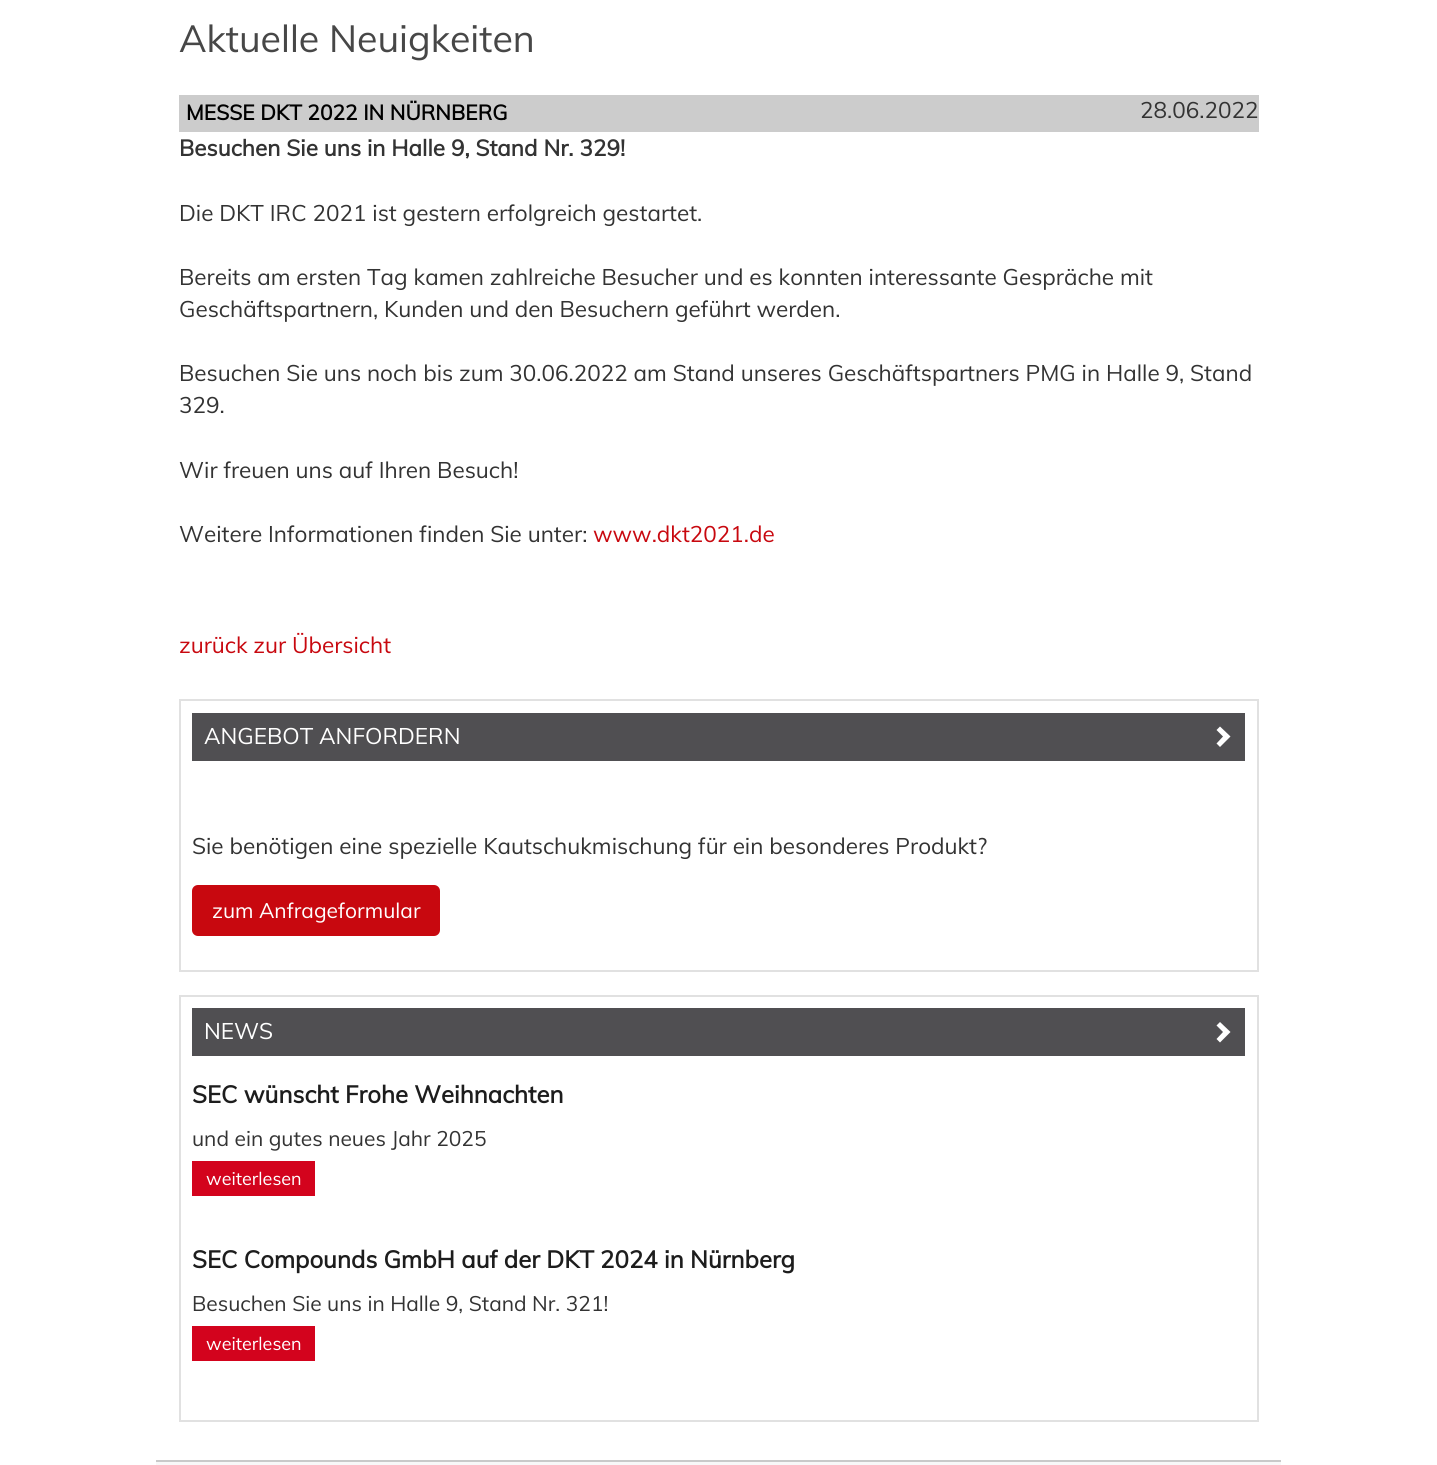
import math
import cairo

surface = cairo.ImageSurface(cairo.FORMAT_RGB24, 1437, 1465)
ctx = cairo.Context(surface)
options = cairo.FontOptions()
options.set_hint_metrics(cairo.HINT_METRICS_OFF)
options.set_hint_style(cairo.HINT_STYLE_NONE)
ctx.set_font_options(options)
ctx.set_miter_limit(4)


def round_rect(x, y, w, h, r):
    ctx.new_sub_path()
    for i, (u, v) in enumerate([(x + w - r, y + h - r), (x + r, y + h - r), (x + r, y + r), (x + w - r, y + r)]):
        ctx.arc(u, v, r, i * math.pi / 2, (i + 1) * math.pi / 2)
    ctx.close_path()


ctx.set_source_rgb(1, 1, 1)
ctx.paint()
ctx.select_font_face("Muli")
ctx.set_font_size(37.5)
ctx.set_source_rgb(0.278, 0.278, 0.278)
ctx.move_to(179, 52)
ctx.show_text("Aktuelle Neuigkeiten")
ctx.set_source_rgb(0.8, 0.8, 0.8)
ctx.rectangle(179, 95, 1080, 37)
ctx.fill()
ctx.select_font_face("Muli", cairo.FONT_SLANT_NORMAL, cairo.FONT_WEIGHT_BOLD)
ctx.set_font_size(21)
ctx.set_source_rgb(0, 0, 0)
ctx.move_to(186, 120)
ctx.show_text("MESSE DKT 2022 IN NÜRNBERG")
ctx.select_font_face("Muli")
ctx.set_font_size(22.5)
ctx.set_source_rgb(0.2, 0.2, 0.2)
ctx.move_to(1140, 118)
ctx.show_text("28.06.2022")
ctx.select_font_face("Muli", cairo.FONT_SLANT_NORMAL, cairo.FONT_WEIGHT_BOLD)
ctx.move_to(179, 156)
ctx.show_text("Besuchen Sie uns in Halle 9, Stand Nr. 329!")
ctx.select_font_face("Muli")
ctx.move_to(179, 221)
ctx.show_text("Die DKT IRC 2021 ist gestern erfolgreich gestartet.")
ctx.move_to(179, 285)
ctx.show_text("Bereits am ersten Tag kamen zahlreiche Besucher und es konnten interessante Gespräche mit")
ctx.move_to(179, 317)
ctx.show_text("Geschäftspartnern, Kunden und den Besuchern geführt werden.")
ctx.move_to(179, 381)
ctx.show_text("Besuchen Sie uns noch bis zum 30.06.2022 am Stand unseres Geschäftspartners PMG in Halle 9, Stand")
ctx.move_to(179, 413)
ctx.show_text("329.")
ctx.move_to(179, 478)
ctx.show_text("Wir freuen uns auf Ihren Besuch!")
ctx.move_to(179, 542)
ctx.show_text("Weitere Informationen finden Sie unter:")
ctx.set_source_rgb(0.784, 0.035, 0.059)
ctx.move_to(593, 542)
ctx.show_text("www.dkt2021.de")
ctx.move_to(179, 653)
ctx.show_text("zurück zur Übersicht")
ctx.rectangle(180, 700, 1078, 271)
ctx.set_source_rgb(0.882, 0.882, 0.882)
ctx.stroke()
ctx.set_source_rgb(0.314, 0.31, 0.322)
ctx.rectangle(192, 713, 1053, 48)
ctx.fill()
ctx.set_source_rgb(1, 1, 1)
ctx.move_to(204, 744)
ctx.show_text("ANGEBOT ANFORDERN")
ctx.new_path()
ctx.move_to(1230.5, 736.5)
ctx.line_to(1220, 747)
ctx.line_to(1216.5, 743.5)
ctx.line_to(1223, 736.5)
ctx.line_to(1216.5, 730)
ctx.line_to(1220, 726.5)
ctx.close_path()
ctx.fill()
ctx.set_source_rgb(0.2, 0.2, 0.2)
ctx.move_to(192, 854)
ctx.show_text("Sie benötigen eine spezielle Kautschukmischung für ein besonderes Produkt?")
ctx.set_source_rgb(0.784, 0.035, 0.059)
round_rect(193, 886, 246, 49, 5)
ctx.fill_preserve()
ctx.stroke()
ctx.set_font_size(21)
ctx.set_source_rgb(1, 1, 1)
ctx.move_to(212, 918)
ctx.show_text("zum Anfrageformular")
ctx.rectangle(180, 996, 1078, 425)
ctx.set_source_rgb(0.882, 0.882, 0.882)
ctx.stroke()
ctx.set_source_rgb(0.314, 0.31, 0.322)
ctx.rectangle(192, 1008, 1053, 48)
ctx.fill()
ctx.set_font_size(22.5)
ctx.set_source_rgb(1, 1, 1)
ctx.move_to(204, 1039)
ctx.show_text("NEWS")
ctx.new_path()
ctx.move_to(1230.5, 1032)
ctx.line_to(1220, 1042.5)
ctx.line_to(1216.5, 1039)
ctx.line_to(1223, 1032)
ctx.line_to(1216.5, 1025.5)
ctx.line_to(1220, 1022)
ctx.close_path()
ctx.fill()
ctx.select_font_face("Muli", cairo.FONT_SLANT_NORMAL, cairo.FONT_WEIGHT_BOLD)
ctx.set_font_size(24)
ctx.set_source_rgb(0.114, 0.114, 0.114)
ctx.move_to(192, 1103)
ctx.show_text("SEC wünscht Frohe Weihnachten")
ctx.select_font_face("Muli")
ctx.set_font_size(21)
ctx.set_source_rgb(0.2, 0.2, 0.2)
ctx.move_to(192, 1146)
ctx.show_text("und ein gutes neues Jahr 2025")
ctx.set_source_rgb(0.827, 0.012, 0.114)
ctx.rectangle(192, 1161, 123, 35)
ctx.fill()
ctx.set_font_size(18)
ctx.set_source_rgb(1, 1, 1)
ctx.move_to(206, 1185)
ctx.show_text("weiterlesen")
ctx.select_font_face("Muli", cairo.FONT_SLANT_NORMAL, cairo.FONT_WEIGHT_BOLD)
ctx.set_font_size(24)
ctx.set_source_rgb(0.114, 0.114, 0.114)
ctx.move_to(192, 1268)
ctx.show_text("SEC Compounds GmbH auf der DKT 2024 in Nürnberg")
ctx.select_font_face("Muli")
ctx.set_font_size(21)
ctx.set_source_rgb(0.2, 0.2, 0.2)
ctx.move_to(192, 1311)
ctx.show_text("Besuchen Sie uns in Halle 9, Stand Nr. 321!")
ctx.set_source_rgb(0.827, 0.012, 0.114)
ctx.rectangle(192, 1326, 123, 35)
ctx.fill()
ctx.set_font_size(18)
ctx.set_source_rgb(1, 1, 1)
ctx.move_to(206, 1350)
ctx.show_text("weiterlesen")
ctx.set_source_rgb(0.969, 0.969, 0.969)
ctx.rectangle(156, 1462, 1125, 3)
ctx.fill()
ctx.set_source_rgb(0.788, 0.788, 0.788)
ctx.rectangle(156, 1460, 1125, 2)
ctx.fill()
surface.write_to_png("page.png")
